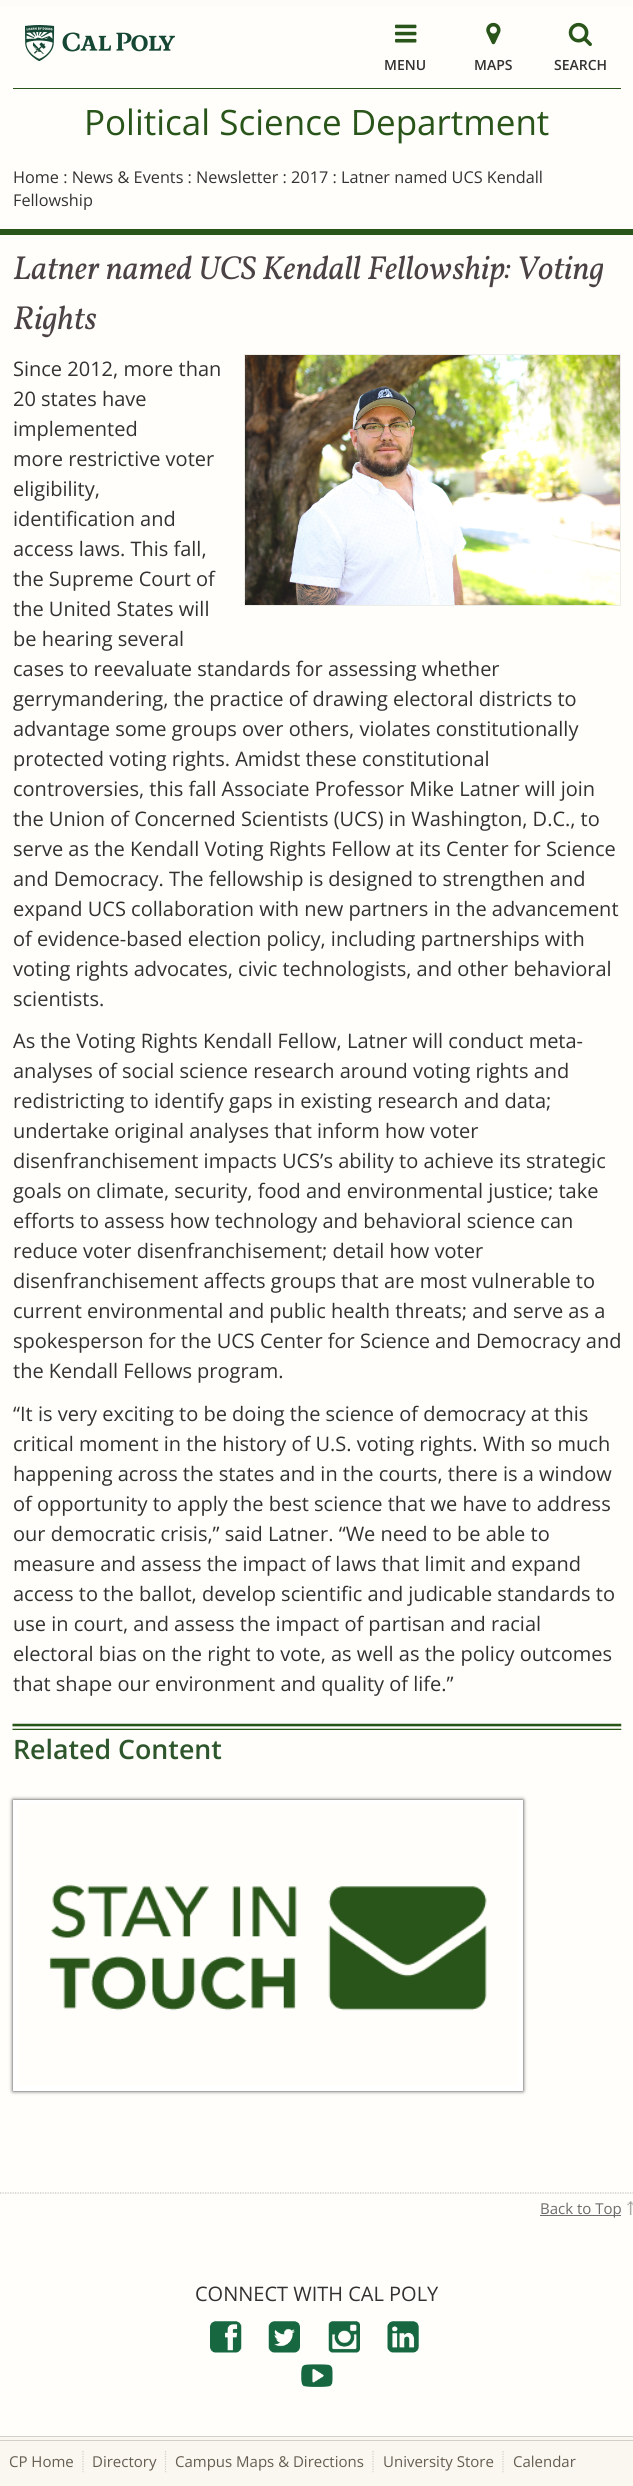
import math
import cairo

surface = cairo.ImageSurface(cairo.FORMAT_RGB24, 633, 2486)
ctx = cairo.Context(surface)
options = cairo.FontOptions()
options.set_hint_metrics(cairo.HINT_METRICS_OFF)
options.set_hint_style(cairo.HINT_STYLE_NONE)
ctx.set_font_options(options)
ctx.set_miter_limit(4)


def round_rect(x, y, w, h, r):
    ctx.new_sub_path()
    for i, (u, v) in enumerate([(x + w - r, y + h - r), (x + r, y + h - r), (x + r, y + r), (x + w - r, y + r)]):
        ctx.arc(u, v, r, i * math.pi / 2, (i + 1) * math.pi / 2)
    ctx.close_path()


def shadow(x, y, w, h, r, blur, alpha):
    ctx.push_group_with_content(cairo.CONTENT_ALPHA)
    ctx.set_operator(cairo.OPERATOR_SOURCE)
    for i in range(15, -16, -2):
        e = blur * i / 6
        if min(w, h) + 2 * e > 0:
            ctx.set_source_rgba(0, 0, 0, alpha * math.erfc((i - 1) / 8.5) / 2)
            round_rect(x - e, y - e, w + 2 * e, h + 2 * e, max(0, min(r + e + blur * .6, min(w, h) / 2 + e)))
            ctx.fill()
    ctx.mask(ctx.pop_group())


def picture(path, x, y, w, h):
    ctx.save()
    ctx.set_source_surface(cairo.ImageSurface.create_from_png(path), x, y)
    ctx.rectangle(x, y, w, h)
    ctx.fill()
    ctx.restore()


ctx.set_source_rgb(0.996, 0.988, 0.969)
ctx.paint()
ctx.set_source_rgb(1, 0.996, 0.98)
ctx.rectangle(0, 6, 633, 2430)
ctx.fill()
ctx.set_source_rgb(0.161, 0.333, 0.102)
ctx.rectangle(13, 88, 608, 1)
ctx.fill()
picture("img1.png", 25, 25, 150, 36)
picture("img2.png", 395, 24, 22, 19)
ctx.select_font_face("Open Sans SemiBold")
ctx.set_font_size(14)
ctx.set_source_rgb(0.196, 0.196, 0.196)
ctx.move_to(384, 70)
ctx.show_text("MENU")
picture("img3.png", 486, 22, 15, 23)
ctx.move_to(474, 70)
ctx.show_text("MAPS")
picture("img4.png", 568, 22, 24, 25)
ctx.move_to(554, 70)
ctx.show_text("SEARCH")
ctx.select_font_face("Open Sans")
ctx.set_font_size(35)
ctx.set_source_rgb(0.161, 0.333, 0.102)
ctx.move_to(84, 135)
ctx.show_text("Political Science Department")
ctx.set_font_size(16.25)
ctx.set_source_rgb(0.196, 0.196, 0.196)
ctx.move_to(13, 183)
ctx.show_text("Home : News & Events : Newsletter : 2017 : Latner named UCS Kendall")
ctx.move_to(13, 206)
ctx.show_text("Fellowship")
ctx.set_source_rgb(0.161, 0.333, 0.102)
ctx.rectangle(0, 229, 633, 6)
ctx.fill()
ctx.select_font_face("Vollkorn", cairo.FONT_SLANT_ITALIC)
ctx.set_font_size(33.3)
ctx.set_source_rgb(0.29, 0.259, 0.267)
ctx.move_to(13, 279)
ctx.show_text("Latner named UCS Kendall Fellowship: Voting")
ctx.move_to(13, 329)
ctx.show_text("Rights")
ctx.rectangle(244.5, 354.5, 376, 251)
ctx.set_source_rgb(0.933, 0.933, 0.91)
ctx.set_line_width(1)
ctx.stroke()
picture("img5.png", 245, 355, 375, 250)
ctx.select_font_face("Open Sans")
ctx.set_font_size(20)
ctx.set_source_rgb(0.196, 0.196, 0.196)
ctx.move_to(13, 376)
ctx.show_text("Since 2012, more than")
ctx.move_to(13, 406)
ctx.show_text("20 states have")
ctx.move_to(13, 436)
ctx.show_text("implemented")
ctx.move_to(13, 466)
ctx.show_text("more restrictive voter")
ctx.move_to(13, 496)
ctx.show_text("eligibility,")
ctx.move_to(13, 526)
ctx.show_text("identification and")
ctx.move_to(13, 556)
ctx.show_text("access laws. This fall,")
ctx.move_to(13, 586)
ctx.show_text("the Supreme Court of")
ctx.move_to(13, 616)
ctx.show_text("the United States will")
ctx.move_to(13, 646)
ctx.show_text("be hearing several")
ctx.move_to(13, 676)
ctx.show_text("cases to reevaluate standards for assessing whether")
ctx.move_to(13, 706)
ctx.show_text("gerrymandering, the practice of drawing electoral districts to")
ctx.move_to(13, 736)
ctx.show_text("advantage some groups over others, violates constitutionally")
ctx.move_to(13, 766)
ctx.show_text("protected voting rights. Amidst these constitutional")
ctx.move_to(13, 796)
ctx.show_text("controversies, this fall Associate Professor Mike Latner will join")
ctx.move_to(13, 826)
ctx.show_text("the Union of Concerned Scientists (UCS) in Washington, D.C., to")
ctx.move_to(13, 856)
ctx.show_text("serve as the Kendall Voting Rights Fellow at its Center for Science")
ctx.move_to(13, 886)
ctx.show_text("and Democracy. The fellowship is designed to strengthen and")
ctx.move_to(13, 916)
ctx.show_text("expand UCS collaboration with new partners in the advancement")
ctx.move_to(13, 946)
ctx.show_text("of evidence-based election policy, including partnerships with")
ctx.move_to(13, 976)
ctx.show_text("voting rights advocates, civic technologists, and other behavioral")
ctx.move_to(13, 1006)
ctx.show_text("scientists.")
ctx.move_to(13, 1048)
ctx.show_text("As the Voting Rights Kendall Fellow, Latner will conduct meta-")
ctx.move_to(13, 1078)
ctx.show_text("analyses of social science research around voting rights and")
ctx.move_to(13, 1108)
ctx.show_text("redistricting to identify gaps in existing research and data;")
ctx.move_to(13, 1138)
ctx.show_text("undertake original analyses that inform how voter")
ctx.move_to(13, 1168)
ctx.show_text("disenfranchisement impacts UCS’s ability to achieve its strategic")
ctx.move_to(13, 1198)
ctx.show_text("goals on climate, security, food and environmental justice; take")
ctx.move_to(13, 1228)
ctx.show_text("efforts to assess how technology and behavioral science can")
ctx.move_to(13, 1258)
ctx.show_text("reduce voter disenfranchisement; detail how voter")
ctx.move_to(13, 1288)
ctx.show_text("disenfranchisement affects groups that are most vulnerable to")
ctx.move_to(13, 1318)
ctx.show_text("current environmental and public health threats; and serve as a")
ctx.move_to(13, 1348)
ctx.show_text("spokesperson for the UCS Center for Science and Democracy and")
ctx.move_to(13, 1378)
ctx.show_text("the Kendall Fellows program.")
ctx.move_to(13, 1421)
ctx.show_text("“It is very exciting to be doing the science of democracy at this")
ctx.move_to(13, 1451)
ctx.show_text("critical moment in the history of U.S. voting rights. With so much")
ctx.move_to(13, 1481)
ctx.show_text("happening across the states and in the courts, there is a window")
ctx.move_to(13, 1511)
ctx.show_text("of opportunity to apply the best science that we have to address")
ctx.move_to(13, 1541)
ctx.show_text("our democratic crisis,” said Latner. “We need to be able to")
ctx.move_to(13, 1571)
ctx.show_text("measure and assess the impact of laws that limit and expand")
ctx.move_to(13, 1601)
ctx.show_text("access to the ballot, develop scientific and judicable standards to")
ctx.move_to(13, 1631)
ctx.show_text("use in court, and assess the impact of partisan and racial")
ctx.move_to(13, 1661)
ctx.show_text("electoral bias on the right to vote, as well as the policy outcomes")
ctx.move_to(13, 1691)
ctx.show_text("that shape our environment and quality of life.”")
picture("img6.png", 12, 1723, 610, 7)
ctx.select_font_face("Open Sans SemiBold")
ctx.set_font_size(26.75)
ctx.set_source_rgb(0.18, 0.337, 0.173)
ctx.move_to(13, 1759)
ctx.show_text("Related Content")
ctx.save()
ctx.set_fill_rule(cairo.FILL_RULE_EVEN_ODD)
ctx.new_path()
ctx.move_to(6, 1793)
ctx.line_to(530, 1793)
ctx.line_to(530, 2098)
ctx.line_to(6, 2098)
ctx.close_path()
ctx.move_to(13, 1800)
ctx.line_to(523, 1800)
ctx.line_to(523, 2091)
ctx.line_to(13, 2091)
ctx.close_path()
ctx.clip()
ctx.set_source_rgb(0.196, 0.196, 0.196)
shadow(13, 1800, 510, 291, 0, 2, 1)
ctx.restore()
ctx.rectangle(15.5, 1802.5, 505, 286)
ctx.set_source_rgb(1, 1, 1)
ctx.set_line_width(5)
ctx.stroke()
picture("img7.png", 49, 1884, 438, 127)
ctx.new_path()
ctx.move_to(0, 2193)
ctx.line_to(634, 2193)
ctx.set_source_rgb(0.761, 0.761, 0.761)
ctx.set_line_width(1.2)
ctx.set_dash([1.25, 1.25])
ctx.stroke()
picture("img8.png", 627, 2201, 6, 14)
ctx.set_source_rgb(0.427, 0.424, 0.424)
ctx.rectangle(540, 2215, 81, 1)
ctx.fill()
ctx.select_font_face("Open Sans")
ctx.set_font_size(15)
ctx.move_to(540, 2214)
ctx.show_text("Back to Top")
ctx.set_font_size(20)
ctx.set_source_rgb(0.196, 0.196, 0.196)
ctx.move_to(195, 2301)
ctx.show_text("CONNECT WITH CAL POLY")
picture("img9.png", 210, 2321, 32, 32)
picture("img10.png", 268, 2321, 32, 32)
picture("img11.png", 328, 2321, 32, 32)
picture("img12.png", 387, 2321, 32, 32)
picture("img13.png", 301, 2364, 32, 23)
ctx.set_source_rgb(0.976, 0.965, 0.937)
ctx.rectangle(0, 2437, 633, 49)
ctx.fill()
ctx.set_source_rgb(0.82, 0.812, 0.78)
ctx.rectangle(0, 2436, 633, 1)
ctx.fill()
ctx.rectangle(0, 2440, 633, 1)
ctx.fill()
ctx.set_font_size(15)
ctx.set_source_rgb(0.4, 0.365, 0.322)
ctx.move_to(9, 2467)
ctx.show_text("CP Home")
ctx.new_path()
ctx.move_to(83, 2451)
ctx.line_to(83, 2472.5)
ctx.set_source_rgb(0.82, 0.812, 0.78)
ctx.stroke()
ctx.set_source_rgb(0.4, 0.365, 0.322)
ctx.move_to(92, 2467)
ctx.show_text("Directory")
ctx.new_path()
ctx.move_to(165.5, 2451)
ctx.line_to(165.5, 2472.5)
ctx.set_source_rgb(0.82, 0.812, 0.78)
ctx.stroke()
ctx.set_source_rgb(0.4, 0.365, 0.322)
ctx.move_to(175, 2467)
ctx.show_text("Campus Maps & Directions")
ctx.new_path()
ctx.move_to(373, 2451)
ctx.line_to(373, 2472.5)
ctx.set_source_rgb(0.82, 0.812, 0.78)
ctx.stroke()
ctx.set_source_rgb(0.4, 0.365, 0.322)
ctx.move_to(383, 2467)
ctx.show_text("University Store")
ctx.new_path()
ctx.move_to(503, 2451)
ctx.line_to(503, 2472.5)
ctx.set_source_rgb(0.82, 0.812, 0.78)
ctx.stroke()
ctx.set_source_rgb(0.4, 0.365, 0.322)
ctx.move_to(513, 2467)
ctx.show_text("Calendar")
surface.write_to_png("page.png")
